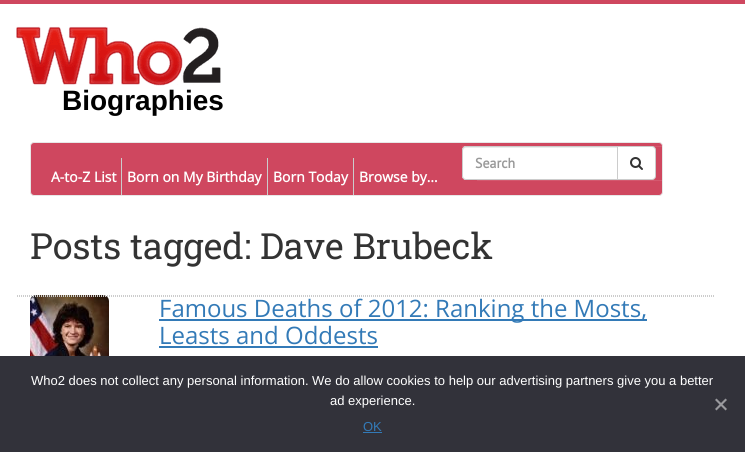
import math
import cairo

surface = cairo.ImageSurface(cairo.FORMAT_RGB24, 745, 452)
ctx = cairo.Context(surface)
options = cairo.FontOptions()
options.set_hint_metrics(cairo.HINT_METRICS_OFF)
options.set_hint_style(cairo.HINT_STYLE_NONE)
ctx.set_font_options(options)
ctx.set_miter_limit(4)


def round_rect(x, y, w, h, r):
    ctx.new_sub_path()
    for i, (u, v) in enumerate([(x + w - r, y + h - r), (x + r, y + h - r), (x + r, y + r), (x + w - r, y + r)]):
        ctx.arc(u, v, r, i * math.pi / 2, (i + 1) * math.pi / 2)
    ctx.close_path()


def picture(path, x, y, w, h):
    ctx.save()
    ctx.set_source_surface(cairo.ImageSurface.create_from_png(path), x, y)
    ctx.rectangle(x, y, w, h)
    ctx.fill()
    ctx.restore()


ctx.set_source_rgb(1, 1, 1)
ctx.paint()
ctx.set_source_rgb(0.812, 0.278, 0.373)
ctx.rectangle(0, 0, 745, 4)
ctx.fill()
picture("img1.png", 16, 26, 205, 60)
ctx.select_font_face("Liberation Sans", cairo.FONT_SLANT_NORMAL, cairo.FONT_WEIGHT_BOLD)
ctx.set_font_size(28)
ctx.set_source_rgb(0, 0, 0)
ctx.move_to(62, 110)
ctx.show_text("Biographies")
ctx.set_source_rgb(0.812, 0.278, 0.373)
round_rect(30.5, 142.5, 632, 53, 3.5)
ctx.fill_preserve()
ctx.set_source_rgb(0.906, 0.906, 0.906)
ctx.set_line_width(1)
ctx.stroke()
ctx.set_source_rgb(0.831, 0.349, 0.435)
ctx.rectangle(477, 180, 185, 1)
ctx.fill()
ctx.rectangle(462, 146, 200, 1)
ctx.fill()
ctx.set_source_rgb(1, 1, 1)
ctx.new_path()
ctx.move_to(466, 146)
ctx.line_to(618, 146)
ctx.line_to(618, 180)
ctx.line_to(466, 180)
ctx.curve_to(464, 180, 462, 178, 462, 176)
ctx.line_to(462, 150)
ctx.curve_to(462, 148, 464, 146, 466, 146)
ctx.close_path()
ctx.fill()
ctx.set_source_rgb(0.925, 0.925, 0.925)
ctx.new_path()
ctx.move_to(466, 148)
ctx.line_to(617, 148)
ctx.line_to(617, 147)
ctx.line_to(465, 147)
ctx.curve_to(463, 147, 463, 149, 463, 151)
ctx.curve_to(463, 149, 464, 148, 466, 148)
ctx.close_path()
ctx.fill()
ctx.new_path()
ctx.move_to(466, 146.5)
ctx.line_to(617.5, 146.5)
ctx.line_to(617.5, 179.5)
ctx.line_to(466, 179.5)
ctx.curve_to(464, 179.5, 462.5, 178, 462.5, 176)
ctx.line_to(462.5, 150)
ctx.curve_to(462.5, 148, 464, 146.5, 466, 146.5)
ctx.close_path()
ctx.set_source_rgb(0.8, 0.8, 0.8)
ctx.stroke()
ctx.select_font_face("PT Sans", cairo.FONT_SLANT_NORMAL, cairo.FONT_WEIGHT_BOLD)
ctx.set_font_size(14)
ctx.set_source_rgb(0.6, 0.6, 0.6)
ctx.move_to(475, 168)
ctx.show_text("Search")
ctx.set_source_rgb(1, 1, 1)
ctx.new_path()
ctx.move_to(617.5, 146.5)
ctx.line_to(652, 146.5)
ctx.curve_to(654, 146.5, 655.5, 148, 655.5, 150)
ctx.line_to(655.5, 176)
ctx.curve_to(655.5, 178, 654, 179.5, 652, 179.5)
ctx.line_to(617.5, 179.5)
ctx.close_path()
ctx.fill_preserve()
ctx.set_source_rgb(0.8, 0.8, 0.8)
ctx.stroke()
picture("img2.png", 630, 157, 13, 13)
ctx.rectangle(121, 158, 1, 37)
ctx.fill()
ctx.select_font_face("Open Sans", cairo.FONT_SLANT_NORMAL, cairo.FONT_WEIGHT_BOLD)
ctx.set_source_rgb(1, 1, 1)
ctx.move_to(51, 182)
ctx.show_text("A-to-Z List")
ctx.set_source_rgb(0.8, 0.8, 0.8)
ctx.rectangle(267, 158, 1, 37)
ctx.fill()
ctx.set_source_rgb(1, 1, 1)
ctx.move_to(127, 182)
ctx.show_text("Born on My Birthday")
ctx.set_source_rgb(0.8, 0.8, 0.8)
ctx.rectangle(353, 158, 1, 37)
ctx.fill()
ctx.set_source_rgb(1, 1, 1)
ctx.move_to(273, 182)
ctx.show_text("Born Today")
ctx.move_to(359, 182)
ctx.show_text("Browse by…")
ctx.select_font_face("Roboto Slab")
ctx.set_font_size(36)
ctx.set_source_rgb(0.2, 0.2, 0.2)
ctx.move_to(30, 259)
ctx.show_text("Posts tagged: Dave Brubeck")
picture("img3.png", 30, 295, 79, 61)
ctx.set_source_rgb(0.2, 0.478, 0.718)
ctx.rectangle(159, 319, 488, 2)
ctx.fill()
ctx.select_font_face("Open Sans")
ctx.set_font_size(24)
ctx.move_to(159, 317)
ctx.show_text("Famous Deaths of 2012: Ranking the Mosts,")
ctx.move_to(159, 344)
ctx.show_text("Leasts and Oddests")
ctx.rectangle(159, 346, 219, 2)
ctx.fill()
ctx.new_path()
ctx.move_to(17, 295.5)
ctx.line_to(715, 295.5)
ctx.set_source_rgb(0.8, 0.8, 0.8)
ctx.set_dash([1, 1])
ctx.stroke()
ctx.new_path()
ctx.move_to(17, 296.5)
ctx.line_to(715, 296.5)
ctx.stroke()
ctx.set_source_rgb(0.196, 0.196, 0.227)
ctx.rectangle(0, 356, 745, 96)
ctx.fill()
ctx.select_font_face("Liberation Sans")
ctx.set_font_size(13)
ctx.set_source_rgb(1, 1, 1)
ctx.move_to(31, 385)
ctx.show_text("Who2 does not collect any personal information. We do allow cookies to help our advertising partners give you a better")
ctx.move_to(330, 405)
ctx.show_text("ad experience.")
ctx.set_source_rgb(0.6, 0.6, 0.616)
ctx.new_path()
ctx.move_to(725.5, 398.5)
ctx.line_to(727, 400)
ctx.line_to(716.5, 410.5)
ctx.line_to(715, 409)
ctx.close_path()
ctx.fill()
ctx.new_path()
ctx.move_to(715, 400)
ctx.line_to(716.5, 398.5)
ctx.line_to(727, 409)
ctx.line_to(725.5, 410.5)
ctx.close_path()
ctx.fill()
ctx.set_source_rgb(0.2, 0.478, 0.718)
ctx.move_to(363, 431)
ctx.show_text("OK")
ctx.rectangle(363, 432, 19, 1)
ctx.fill()
surface.write_to_png("page.png")
